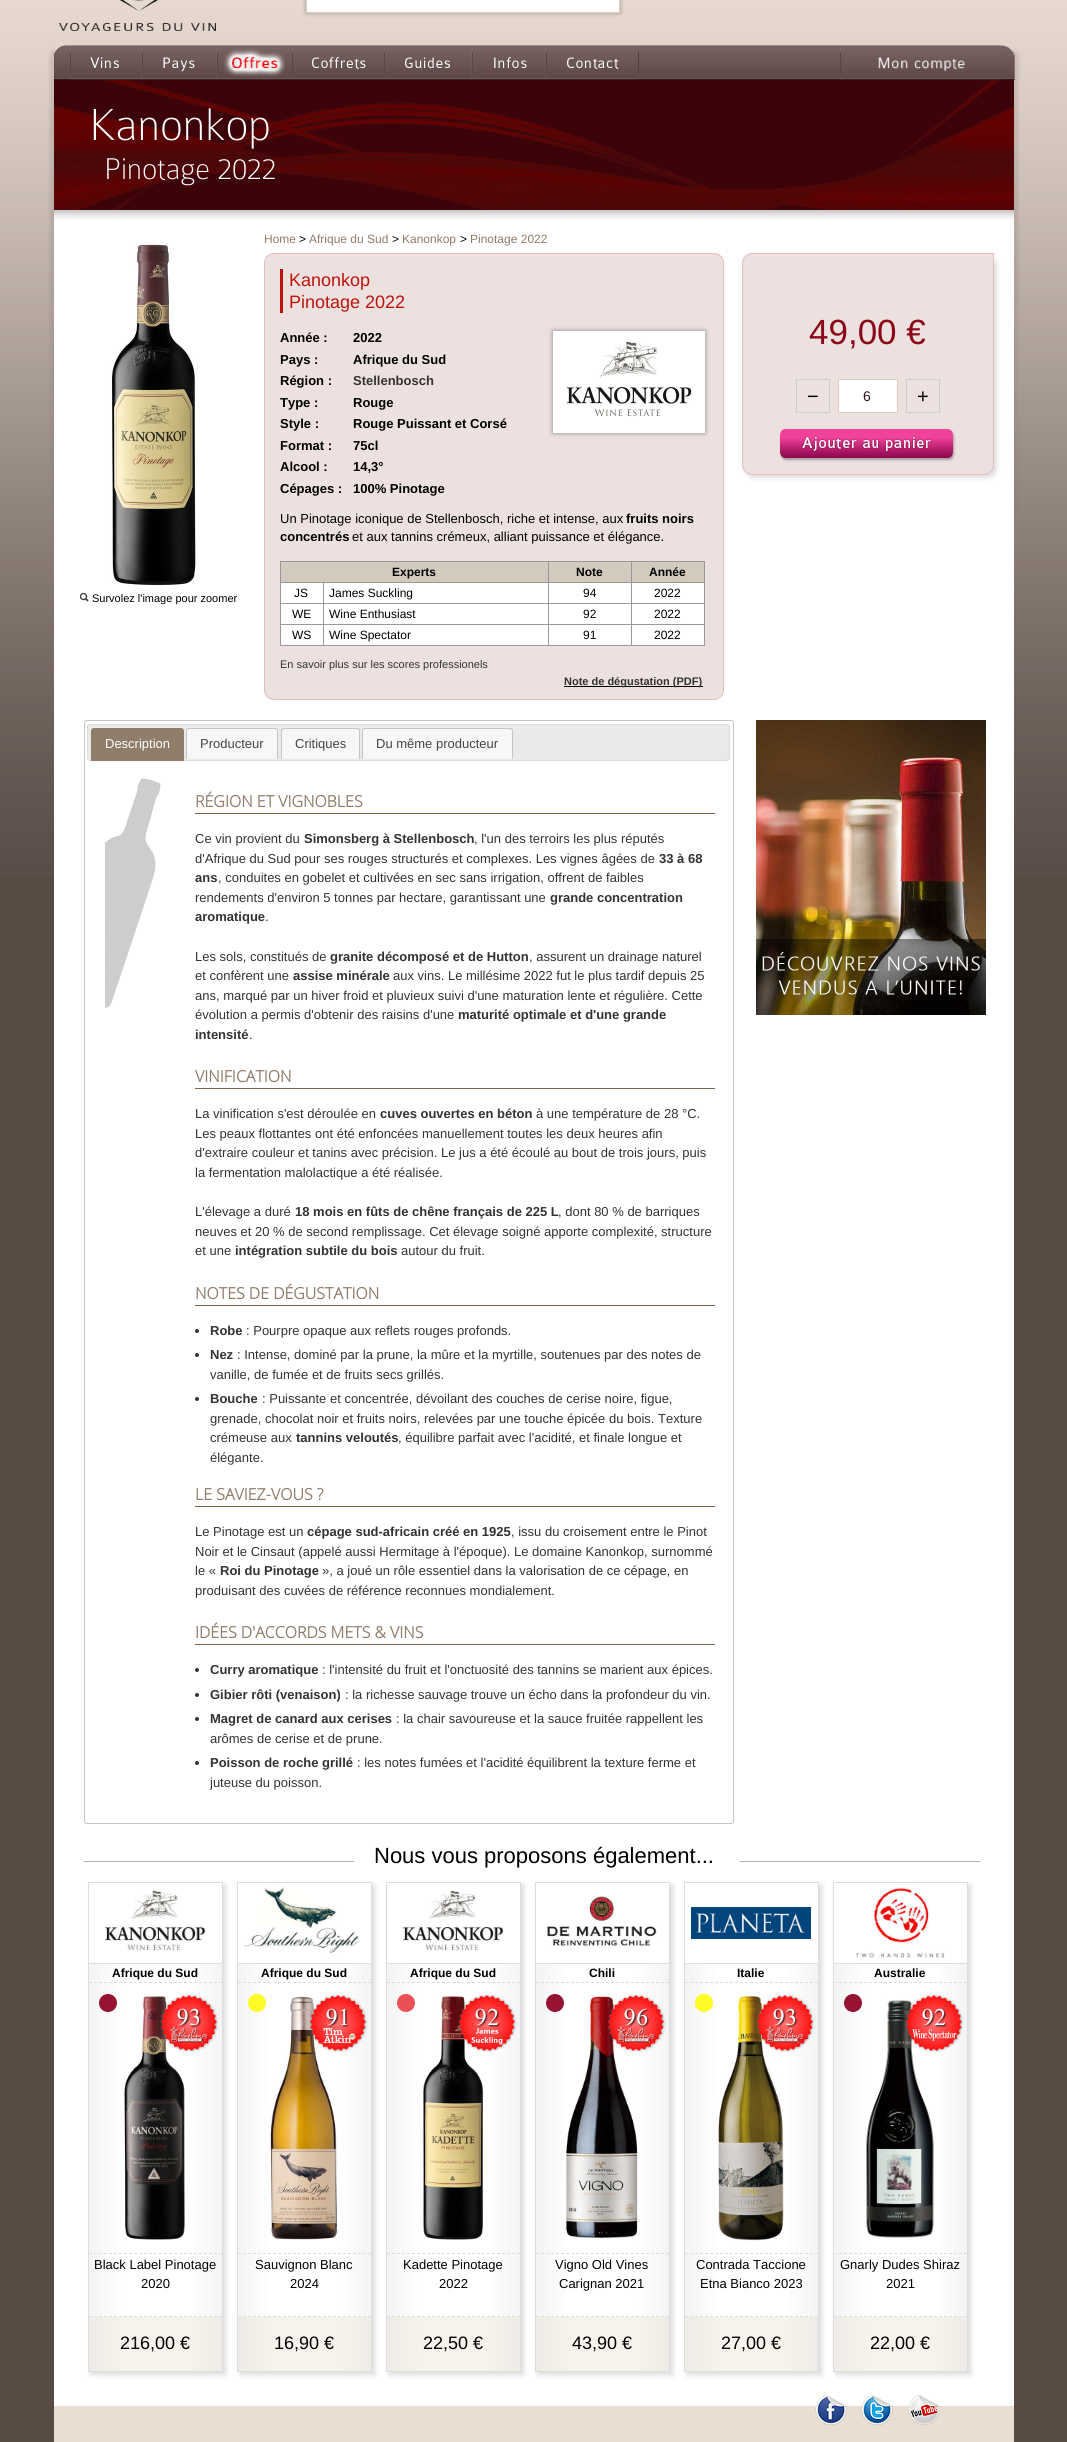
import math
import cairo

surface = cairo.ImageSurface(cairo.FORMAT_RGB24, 1067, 2442)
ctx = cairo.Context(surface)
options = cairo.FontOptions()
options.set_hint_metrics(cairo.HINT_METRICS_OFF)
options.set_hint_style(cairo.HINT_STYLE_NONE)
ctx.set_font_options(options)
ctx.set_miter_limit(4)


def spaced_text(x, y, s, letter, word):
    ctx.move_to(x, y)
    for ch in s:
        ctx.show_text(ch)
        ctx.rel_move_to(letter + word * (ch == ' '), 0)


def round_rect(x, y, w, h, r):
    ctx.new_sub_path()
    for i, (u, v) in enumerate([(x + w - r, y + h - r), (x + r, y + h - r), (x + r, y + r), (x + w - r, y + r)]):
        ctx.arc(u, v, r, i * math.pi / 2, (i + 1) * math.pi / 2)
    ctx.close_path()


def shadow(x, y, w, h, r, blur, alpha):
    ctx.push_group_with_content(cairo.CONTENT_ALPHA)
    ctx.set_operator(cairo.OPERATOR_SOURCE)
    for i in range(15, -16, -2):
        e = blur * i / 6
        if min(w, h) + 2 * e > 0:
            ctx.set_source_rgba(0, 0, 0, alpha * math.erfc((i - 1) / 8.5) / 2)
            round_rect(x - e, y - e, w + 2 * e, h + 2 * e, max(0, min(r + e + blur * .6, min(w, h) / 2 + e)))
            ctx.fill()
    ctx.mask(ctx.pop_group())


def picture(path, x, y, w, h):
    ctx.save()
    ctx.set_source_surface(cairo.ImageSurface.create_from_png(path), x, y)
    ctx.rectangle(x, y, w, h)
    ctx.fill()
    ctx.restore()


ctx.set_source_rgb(0.345, 0.294, 0.263)
ctx.paint()
picture("img1.png", 0, 0, 1067, 875)
picture("img2.png", 59, 0, 157, 31)
ctx.set_source_rgb(0, 0, 0)
shadow(306, -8, 314, 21, 0, 2.5, 0.3)
ctx.set_source_rgb(1, 1, 1)
ctx.rectangle(306.5, -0.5, 313, 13)
ctx.fill_preserve()
ctx.set_source_rgb(0.855, 0.808, 0.745)
ctx.set_line_width(1)
ctx.stroke()
picture("img3.png", 48, 45, 22, 35)
picture("img4.png", 70, 45, 72, 35)
picture("img5.png", 142, 45, 75, 35)
picture("img6.png", 217, 45, 75, 35)
picture("img7.png", 292, 45, 92, 35)
picture("img8.png", 384, 45, 88, 35)
picture("img9.png", 472, 45, 74, 35)
picture("img10.png", 546, 45, 93, 35)
picture("img11.png", 639, 45, 201, 35)
picture("img12.png", 840, 45, 160, 35)
picture("img13.png", 1000, 45, 21, 35)
picture("img14.png", 48, 80, 6, 438)
ctx.set_source_rgb(1, 1, 1)
ctx.rectangle(54, 210, 960, 2196)
ctx.fill()
picture("img15.png", 54, 80, 960, 130)
ctx.select_font_face("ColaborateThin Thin")
ctx.set_font_size(48)
ctx.move_to(89, 140)
ctx.show_text("Kanonkop")
ctx.set_font_size(32)
ctx.move_to(104, 179)
ctx.show_text("Pinotage 2022")
picture("img16.png", 54, 210, 960, 10)
ctx.select_font_face("Liberation Sans")
ctx.set_font_size(12)
ctx.set_source_rgb(0.561, 0.486, 0.412)
ctx.move_to(264, 243)
ctx.show_text("Home")
ctx.set_source_rgb(0, 0, 0)
ctx.move_to(299, 243)
ctx.show_text(">")
ctx.set_source_rgb(0.561, 0.486, 0.412)
ctx.move_to(309, 243)
ctx.show_text("Afrique du Sud")
ctx.set_source_rgb(0, 0, 0)
ctx.move_to(392, 243)
ctx.show_text(">")
ctx.set_source_rgb(0.561, 0.486, 0.412)
ctx.move_to(402, 243)
ctx.show_text("Kanonkop")
ctx.set_source_rgb(0, 0, 0)
ctx.move_to(460, 243)
ctx.show_text(">")
ctx.set_source_rgb(0.561, 0.486, 0.412)
ctx.move_to(470, 243)
ctx.show_text("Pinotage 2022")
picture("img17.png", 110, 244, 86, 342)
picture("img18.png", 80, 593, 9, 9)
ctx.set_font_size(11)
ctx.set_source_rgb(0, 0, 0)
ctx.move_to(92, 602)
ctx.show_text("Survolez l'image pour zoomer")
ctx.set_source_rgb(0.925, 0.882, 0.875)
round_rect(264.5, 253.5, 459, 446, 9.5)
ctx.fill_preserve()
ctx.set_source_rgb(0.878, 0.749, 0.749)
ctx.stroke()
ctx.set_source_rgb(0.741, 0.075, 0.051)
ctx.rectangle(280, 269, 3, 44)
ctx.fill()
ctx.set_font_size(18)
ctx.move_to(289, 286)
ctx.show_text("Kanonkop")
ctx.move_to(289, 308)
ctx.show_text("Pinotage 2022")
ctx.select_font_face("Liberation Sans", cairo.FONT_SLANT_NORMAL, cairo.FONT_WEIGHT_BOLD)
ctx.set_font_size(13)
ctx.set_source_rgb(0, 0, 0)
ctx.move_to(280, 342)
ctx.show_text("Année :")
ctx.move_to(353, 342)
ctx.show_text("2022")
ctx.move_to(280, 364)
ctx.show_text("Pays :")
ctx.move_to(353, 364)
ctx.show_text("Afrique du Sud")
ctx.move_to(280, 385)
ctx.show_text("Région :")
ctx.set_source_rgb(0.2, 0.2, 0.2)
ctx.move_to(353, 385)
ctx.show_text("Stellenbosch")
ctx.set_source_rgb(0, 0, 0)
ctx.move_to(280, 407)
ctx.show_text("Type :")
ctx.move_to(353, 407)
ctx.show_text("Rouge")
ctx.move_to(280, 428)
ctx.show_text("Style :")
ctx.move_to(353, 428)
ctx.show_text("Rouge Puissant et Corsé")
ctx.move_to(280, 450)
ctx.show_text("Format :")
ctx.move_to(353, 450)
ctx.show_text("75cl")
ctx.move_to(280, 471)
ctx.show_text("Alcool :")
ctx.move_to(353, 471)
ctx.show_text("14,3°")
ctx.move_to(280, 493)
ctx.show_text("Cépages :")
ctx.move_to(353, 493)
ctx.show_text("100% Pinotage")
ctx.set_source_rgb(0.533, 0.533, 0.533)
shadow(553, 331, 152, 102, 0, 2.5, 1)
ctx.rectangle(553.5, 331.5, 151, 101)
ctx.set_source_rgb(1, 1, 1)
ctx.stroke()
picture("img19.png", 554, 332, 150, 100)
ctx.select_font_face("Liberation Sans")
ctx.set_source_rgb(0, 0, 0)
ctx.move_to(280, 523)
ctx.show_text("Un Pinotage iconique de Stellenbosch, riche et intense, aux")
ctx.select_font_face("Liberation Sans", cairo.FONT_SLANT_NORMAL, cairo.FONT_WEIGHT_BOLD)
ctx.move_to(626, 523)
ctx.show_text("fruits noirs")
ctx.move_to(280, 541)
ctx.show_text("concentrés")
ctx.select_font_face("Liberation Sans")
ctx.move_to(352, 541)
ctx.show_text("et aux tannins crémeux, alliant puissance et élégance.")
ctx.set_source_rgb(1, 1, 1)
ctx.rectangle(281, 583, 423, 62)
ctx.fill()
ctx.set_source_rgb(0.824, 0.792, 0.741)
ctx.rectangle(281, 562, 423, 20)
ctx.fill()
ctx.set_source_rgb(0.6, 0.6, 0.6)
ctx.rectangle(631, 561, 74, 1)
ctx.fill()
ctx.rectangle(631, 582, 74, 1)
ctx.fill()
ctx.rectangle(631, 603, 74, 1)
ctx.fill()
ctx.rectangle(631, 624, 74, 1)
ctx.fill()
ctx.rectangle(704, 624, 1, 22)
ctx.fill()
ctx.rectangle(631, 645, 74, 1)
ctx.fill()
ctx.rectangle(631, 624, 1, 22)
ctx.fill()
ctx.rectangle(548, 624, 84, 1)
ctx.fill()
ctx.rectangle(631, 603, 1, 22)
ctx.fill()
ctx.rectangle(548, 603, 84, 1)
ctx.fill()
ctx.rectangle(631, 582, 1, 22)
ctx.fill()
ctx.rectangle(548, 582, 84, 1)
ctx.fill()
ctx.rectangle(631, 561, 1, 22)
ctx.fill()
ctx.rectangle(548, 561, 84, 1)
ctx.fill()
ctx.rectangle(548, 645, 84, 1)
ctx.fill()
ctx.rectangle(548, 624, 1, 22)
ctx.fill()
ctx.rectangle(323, 624, 226, 1)
ctx.fill()
ctx.rectangle(548, 603, 1, 22)
ctx.fill()
ctx.rectangle(323, 603, 226, 1)
ctx.fill()
ctx.rectangle(548, 582, 1, 22)
ctx.fill()
ctx.rectangle(323, 582, 226, 1)
ctx.fill()
ctx.rectangle(548, 561, 1, 22)
ctx.fill()
ctx.rectangle(280, 561, 269, 1)
ctx.fill()
ctx.rectangle(323, 645, 226, 1)
ctx.fill()
ctx.rectangle(323, 624, 1, 22)
ctx.fill()
ctx.rectangle(280, 624, 44, 1)
ctx.fill()
ctx.rectangle(323, 603, 1, 22)
ctx.fill()
ctx.rectangle(280, 603, 44, 1)
ctx.fill()
ctx.rectangle(323, 582, 1, 22)
ctx.fill()
ctx.rectangle(280, 582, 44, 1)
ctx.fill()
ctx.rectangle(280, 645, 44, 1)
ctx.fill()
ctx.rectangle(280, 624, 1, 22)
ctx.fill()
ctx.rectangle(280, 603, 1, 22)
ctx.fill()
ctx.rectangle(280, 582, 1, 22)
ctx.fill()
ctx.rectangle(280, 561, 1, 22)
ctx.fill()
ctx.select_font_face("Liberation Sans", cairo.FONT_SLANT_NORMAL, cairo.FONT_WEIGHT_BOLD)
ctx.set_font_size(12)
ctx.set_source_rgb(0, 0, 0)
ctx.move_to(392, 576)
ctx.show_text("Experts")
ctx.move_to(576, 576)
ctx.show_text("Note")
ctx.set_source_rgb(0.6, 0.6, 0.6)
ctx.rectangle(704, 603, 1, 22)
ctx.fill()
ctx.rectangle(704, 582, 1, 22)
ctx.fill()
ctx.rectangle(704, 561, 1, 22)
ctx.fill()
ctx.set_source_rgb(0, 0, 0)
ctx.move_to(649, 576)
ctx.show_text("Année")
ctx.select_font_face("Liberation Sans")
ctx.move_to(294, 597)
ctx.show_text("JS")
ctx.move_to(329, 597)
ctx.show_text("James Suckling")
ctx.move_to(583, 597)
ctx.show_text("94")
ctx.move_to(654, 597)
ctx.show_text("2022")
ctx.move_to(292, 618)
ctx.show_text("WE")
ctx.move_to(329, 618)
ctx.show_text("Wine Enthusiast")
ctx.move_to(583, 618)
ctx.show_text("92")
ctx.move_to(654, 618)
ctx.show_text("2022")
ctx.move_to(292, 639)
ctx.show_text("WS")
ctx.move_to(329, 639)
ctx.show_text("Wine Spectator")
ctx.move_to(583, 639)
ctx.show_text("91")
ctx.move_to(654, 639)
ctx.show_text("2022")
ctx.set_font_size(11)
ctx.set_source_rgb(0.2, 0.2, 0.2)
ctx.move_to(280, 668)
ctx.show_text("En savoir plus sur les scores professionels")
ctx.set_source_rgb(0, 0, 0)
ctx.rectangle(564, 686, 139, 1)
ctx.fill()
ctx.select_font_face("Liberation Sans", cairo.FONT_SLANT_NORMAL, cairo.FONT_WEIGHT_BOLD)
ctx.set_source_rgb(0.2, 0.2, 0.2)
ctx.move_to(564, 685)
ctx.show_text("Note de dégustation (PDF)")
round_rect(84.5, 720.5, 649, 1103, 2.5)
ctx.set_source_rgb(0.773, 0.773, 0.773)
ctx.stroke()
ctx.set_source_rgb(0.914, 0.914, 0.914)
round_rect(87.5, 724.5, 642, 36, 2.5)
ctx.fill_preserve()
ctx.set_source_rgb(0.867, 0.867, 0.867)
ctx.stroke()
ctx.set_source_rgb(0.561, 0.486, 0.412)
ctx.new_path()
ctx.move_to(94, 728.5)
ctx.line_to(181, 728.5)
ctx.curve_to(182.5, 728.5, 183.5, 729.5, 183.5, 731)
ctx.line_to(183.5, 760.5)
ctx.line_to(91.5, 760.5)
ctx.line_to(91.5, 731)
ctx.curve_to(91.5, 729.5, 92.5, 728.5, 94, 728.5)
ctx.close_path()
ctx.fill_preserve()
ctx.stroke()
ctx.select_font_face("Liberation Sans")
ctx.set_font_size(13)
ctx.set_source_rgb(1, 1, 1)
ctx.move_to(105, 748)
ctx.show_text("Description")
ctx.set_source_rgb(0.965, 0.965, 0.965)
ctx.new_path()
ctx.move_to(189, 729)
ctx.line_to(275, 729)
ctx.curve_to(276, 729, 277, 730, 277, 731)
ctx.line_to(277, 759)
ctx.line_to(187, 759)
ctx.line_to(187, 731)
ctx.curve_to(187, 730, 188, 729, 189, 729)
ctx.close_path()
ctx.fill()
ctx.set_source_rgb(0.773, 0.773, 0.773)
ctx.set_fill_rule(cairo.FILL_RULE_EVEN_ODD)
ctx.new_path()
ctx.move_to(189, 728)
ctx.line_to(275, 728)
ctx.curve_to(277, 728, 278, 729, 278, 731)
ctx.line_to(278, 759)
ctx.line_to(186, 759)
ctx.line_to(186, 731)
ctx.curve_to(186, 729, 187, 728, 189, 728)
ctx.close_path()
ctx.move_to(189, 729)
ctx.line_to(275, 729)
ctx.curve_to(276, 729, 277, 730, 277, 731)
ctx.line_to(277, 759)
ctx.line_to(187, 759)
ctx.line_to(187, 731)
ctx.curve_to(187, 730, 188, 729, 189, 729)
ctx.close_path()
ctx.fill()
ctx.set_source_rgb(0.271, 0.271, 0.271)
ctx.move_to(200, 748)
ctx.show_text("Producteur")
ctx.set_source_rgb(0.965, 0.965, 0.965)
ctx.new_path()
ctx.move_to(284, 729)
ctx.line_to(357, 729)
ctx.curve_to(358, 729, 359, 730, 359, 731)
ctx.line_to(359, 759)
ctx.line_to(282, 759)
ctx.line_to(282, 731)
ctx.curve_to(282, 730, 283, 729, 284, 729)
ctx.close_path()
ctx.fill()
ctx.set_source_rgb(0.773, 0.773, 0.773)
ctx.new_path()
ctx.move_to(284, 728)
ctx.line_to(357, 728)
ctx.curve_to(359, 728, 360, 729, 360, 731)
ctx.line_to(360, 759)
ctx.line_to(281, 759)
ctx.line_to(281, 731)
ctx.curve_to(281, 729, 282, 728, 284, 728)
ctx.close_path()
ctx.move_to(284, 729)
ctx.line_to(357, 729)
ctx.curve_to(358, 729, 359, 730, 359, 731)
ctx.line_to(359, 759)
ctx.line_to(282, 759)
ctx.line_to(282, 731)
ctx.curve_to(282, 730, 283, 729, 284, 729)
ctx.close_path()
ctx.fill()
ctx.set_source_rgb(0.271, 0.271, 0.271)
ctx.move_to(295, 748)
ctx.show_text("Critiques")
ctx.set_source_rgb(0.965, 0.965, 0.965)
ctx.new_path()
ctx.move_to(365, 729)
ctx.line_to(510, 729)
ctx.curve_to(511, 729, 512, 730, 512, 731)
ctx.line_to(512, 759)
ctx.line_to(363, 759)
ctx.line_to(363, 731)
ctx.curve_to(363, 730, 364, 729, 365, 729)
ctx.close_path()
ctx.fill()
ctx.set_source_rgb(0.773, 0.773, 0.773)
ctx.new_path()
ctx.move_to(365, 728)
ctx.line_to(510, 728)
ctx.curve_to(512, 728, 513, 729, 513, 731)
ctx.line_to(513, 759)
ctx.line_to(362, 759)
ctx.line_to(362, 731)
ctx.curve_to(362, 729, 363, 728, 365, 728)
ctx.close_path()
ctx.move_to(365, 729)
ctx.line_to(510, 729)
ctx.curve_to(511, 729, 512, 730, 512, 731)
ctx.line_to(512, 759)
ctx.line_to(363, 759)
ctx.line_to(363, 731)
ctx.curve_to(363, 730, 364, 729, 365, 729)
ctx.close_path()
ctx.fill()
ctx.set_source_rgb(0.271, 0.271, 0.271)
ctx.move_to(376, 748)
ctx.show_text("Du même producteur")
picture("img20.png", 105, 778, 56, 230)
ctx.set_source_rgb(0.494, 0.392, 0.294)
ctx.rectangle(195, 813, 520, 1)
ctx.fill()
ctx.select_font_face("Open Sans", cairo.FONT_SLANT_NORMAL, cairo.FONT_WEIGHT_BOLD)
ctx.set_font_size(16)
ctx.set_source_rgb(0.561, 0.486, 0.412)
ctx.move_to(195, 807)
ctx.show_text("RÉGION ET VIGNOBLES")
ctx.select_font_face("Liberation Sans")
ctx.set_font_size(13)
ctx.set_source_rgb(0.2, 0.2, 0.2)
ctx.move_to(195, 843)
ctx.show_text("Ce vin provient du")
ctx.select_font_face("Liberation Sans", cairo.FONT_SLANT_NORMAL, cairo.FONT_WEIGHT_BOLD)
ctx.move_to(304, 843)
ctx.show_text("Simonsberg à Stellenbosch")
ctx.select_font_face("Liberation Sans")
ctx.move_to(474, 843)
ctx.show_text(", l'un des terroirs les plus réputés")
ctx.move_to(195, 863)
ctx.show_text("d'Afrique du Sud pour ses rouges structurés et complexes. Les vignes âgées de")
ctx.select_font_face("Liberation Sans", cairo.FONT_SLANT_NORMAL, cairo.FONT_WEIGHT_BOLD)
ctx.move_to(659, 863)
ctx.show_text("33 à 68")
ctx.move_to(195, 882)
ctx.show_text("ans")
ctx.select_font_face("Liberation Sans")
ctx.move_to(218, 882)
ctx.show_text(", conduites en gobelet et cultivées en sec sans irrigation, offrent de faibles")
ctx.move_to(195, 902)
ctx.show_text("rendements d'environ 5 tonnes par hectare, garantissant une")
ctx.select_font_face("Liberation Sans", cairo.FONT_SLANT_NORMAL, cairo.FONT_WEIGHT_BOLD)
ctx.move_to(550, 902)
ctx.show_text("grande concentration")
ctx.move_to(195, 921)
ctx.show_text("aromatique")
ctx.select_font_face("Liberation Sans")
ctx.move_to(265, 921)
ctx.show_text(".")
ctx.move_to(195, 961)
ctx.show_text("Les sols, constitués de")
ctx.select_font_face("Liberation Sans", cairo.FONT_SLANT_NORMAL, cairo.FONT_WEIGHT_BOLD)
ctx.move_to(330, 961)
ctx.show_text("granite décomposé et de Hutton")
ctx.select_font_face("Liberation Sans")
ctx.move_to(529, 961)
ctx.show_text(", assurent un drainage naturel")
ctx.move_to(195, 980)
ctx.show_text("et confèrent une")
ctx.select_font_face("Liberation Sans", cairo.FONT_SLANT_NORMAL, cairo.FONT_WEIGHT_BOLD)
ctx.move_to(293, 980)
ctx.show_text("assise minérale")
ctx.select_font_face("Liberation Sans")
ctx.move_to(393, 980)
ctx.show_text("aux vins. Le millésime 2022 fut le plus tardif depuis 25")
ctx.move_to(195, 1000)
ctx.show_text("ans, marqué par un hiver froid et pluvieux suivi d'une maturation lente et régulière. Cette")
ctx.move_to(195, 1019)
ctx.show_text("évolution a permis d'obtenir des raisins d'une")
ctx.select_font_face("Liberation Sans", cairo.FONT_SLANT_NORMAL, cairo.FONT_WEIGHT_BOLD)
ctx.move_to(458, 1019)
ctx.show_text("maturité optimale et d'une grande")
ctx.move_to(195, 1039)
ctx.show_text("intensité")
ctx.select_font_face("Liberation Sans")
ctx.move_to(249, 1039)
ctx.show_text(".")
ctx.set_source_rgb(0.494, 0.392, 0.294)
ctx.rectangle(195, 1088, 520, 1)
ctx.fill()
ctx.select_font_face("Open Sans", cairo.FONT_SLANT_NORMAL, cairo.FONT_WEIGHT_BOLD)
ctx.set_font_size(16)
ctx.set_source_rgb(0.561, 0.486, 0.412)
ctx.move_to(195, 1082)
ctx.show_text("VINIFICATION")
ctx.select_font_face("Liberation Sans")
ctx.set_font_size(13)
ctx.set_source_rgb(0.2, 0.2, 0.2)
ctx.move_to(195, 1118)
ctx.show_text("La vinification s'est déroulée en")
ctx.select_font_face("Liberation Sans", cairo.FONT_SLANT_NORMAL, cairo.FONT_WEIGHT_BOLD)
ctx.move_to(380, 1118)
ctx.show_text("cuves ouvertes en béton")
ctx.select_font_face("Liberation Sans")
ctx.move_to(536, 1118)
ctx.show_text("à une température de 28 °C.")
ctx.move_to(195, 1138)
ctx.show_text("Les peaux flottantes ont été enfoncées manuellement toutes les deux heures afin")
ctx.move_to(195, 1157)
ctx.show_text("d'extraire couleur et tanins avec précision. Le jus a été écoulé au bout de trois jours, puis")
ctx.move_to(195, 1177)
ctx.show_text("la fermentation malolactique a été réalisée.")
ctx.move_to(195, 1216)
ctx.show_text("L'élevage a duré")
ctx.select_font_face("Liberation Sans", cairo.FONT_SLANT_NORMAL, cairo.FONT_WEIGHT_BOLD)
ctx.move_to(295, 1216)
ctx.show_text("18 mois en fûts de chêne français de 225 L")
ctx.select_font_face("Liberation Sans")
ctx.move_to(558, 1216)
ctx.show_text(", dont 80 % de barriques")
ctx.move_to(195, 1236)
ctx.show_text("neuves et 20 % de second remplissage. Cet élevage soigné apporte complexité, structure")
ctx.move_to(195, 1255)
ctx.show_text("et une")
ctx.select_font_face("Liberation Sans", cairo.FONT_SLANT_NORMAL, cairo.FONT_WEIGHT_BOLD)
ctx.move_to(235, 1255)
ctx.show_text("intégration subtile du bois")
ctx.select_font_face("Liberation Sans")
ctx.move_to(401, 1255)
ctx.show_text("autour du fruit.")
ctx.set_source_rgb(0.494, 0.392, 0.294)
ctx.rectangle(195, 1305, 520, 1)
ctx.fill()
ctx.select_font_face("Open Sans", cairo.FONT_SLANT_NORMAL, cairo.FONT_WEIGHT_BOLD)
ctx.set_font_size(16)
ctx.set_source_rgb(0.561, 0.486, 0.412)
ctx.move_to(195, 1299)
ctx.show_text("NOTES DE DÉGUSTATION")
ctx.set_source_rgb(0.2, 0.2, 0.2)
ctx.new_path()
ctx.arc(197, 1331, 2, 0, 2 * math.pi)
ctx.fill()
ctx.select_font_face("Liberation Sans", cairo.FONT_SLANT_NORMAL, cairo.FONT_WEIGHT_BOLD)
ctx.set_font_size(13)
ctx.move_to(210, 1335)
ctx.show_text("Robe")
ctx.select_font_face("Liberation Sans")
ctx.move_to(246, 1335)
ctx.show_text(": Pourpre opaque aux reflets rouges profonds.")
ctx.new_path()
ctx.arc(197, 1355, 2, 0, 2 * math.pi)
ctx.fill()
ctx.select_font_face("Liberation Sans", cairo.FONT_SLANT_NORMAL, cairo.FONT_WEIGHT_BOLD)
ctx.move_to(210, 1359)
ctx.show_text("Nez")
ctx.select_font_face("Liberation Sans")
ctx.move_to(237, 1359)
ctx.show_text(": Intense, dominé par la prune, la mûre et la myrtille, soutenues par des notes de")
ctx.move_to(210, 1379)
ctx.show_text("vanille, de fumée et de fruits secs grillés.")
ctx.new_path()
ctx.arc(197, 1399, 2, 0, 2 * math.pi)
ctx.fill()
ctx.select_font_face("Liberation Sans", cairo.FONT_SLANT_NORMAL, cairo.FONT_WEIGHT_BOLD)
ctx.move_to(210, 1403)
ctx.show_text("Bouche")
ctx.select_font_face("Liberation Sans")
ctx.move_to(262, 1403)
ctx.show_text(": Puissante et concentrée, dévoilant des couches de cerise noire, figue,")
ctx.move_to(210, 1423)
ctx.show_text("grenade, chocolat noir et fruits noirs, relevées par une touche épicée du bois. Texture")
ctx.move_to(210, 1442)
ctx.show_text("crémeuse aux")
ctx.select_font_face("Liberation Sans", cairo.FONT_SLANT_NORMAL, cairo.FONT_WEIGHT_BOLD)
ctx.move_to(296, 1442)
ctx.show_text("tannins veloutés")
ctx.select_font_face("Liberation Sans")
ctx.move_to(398, 1442)
ctx.show_text(", équilibre parfait avec l'acidité, et finale longue et")
ctx.move_to(210, 1462)
ctx.show_text("élégante.")
ctx.set_source_rgb(0.494, 0.392, 0.294)
ctx.rectangle(195, 1506, 520, 1)
ctx.fill()
ctx.select_font_face("Open Sans", cairo.FONT_SLANT_NORMAL, cairo.FONT_WEIGHT_BOLD)
ctx.set_font_size(16)
ctx.set_source_rgb(0.561, 0.486, 0.412)
ctx.move_to(195, 1500)
ctx.show_text("LE SAVIEZ-VOUS ?")
ctx.select_font_face("Liberation Sans")
ctx.set_font_size(13)
ctx.set_source_rgb(0.2, 0.2, 0.2)
ctx.move_to(195, 1536)
ctx.show_text("Le Pinotage est un")
ctx.select_font_face("Liberation Sans", cairo.FONT_SLANT_NORMAL, cairo.FONT_WEIGHT_BOLD)
ctx.move_to(307, 1536)
ctx.show_text("cépage sud-africain créé en 1925")
ctx.select_font_face("Liberation Sans")
ctx.move_to(511, 1536)
ctx.show_text(", issu du croisement entre le Pinot")
ctx.move_to(195, 1556)
ctx.show_text("Noir et le Cinsaut (appelé aussi Hermitage à l'époque). Le domaine Kanonkop, surnommé")
ctx.move_to(195, 1575)
ctx.show_text("le «")
ctx.select_font_face("Liberation Sans", cairo.FONT_SLANT_NORMAL, cairo.FONT_WEIGHT_BOLD)
ctx.move_to(220, 1575)
ctx.show_text("Roi du Pinotage")
ctx.select_font_face("Liberation Sans")
ctx.move_to(322, 1575)
ctx.show_text("», a joué un rôle essentiel dans la valorisation de ce cépage, en")
ctx.move_to(195, 1595)
ctx.show_text("produisant des cuvées de référence reconnues mondialement.")
ctx.set_source_rgb(0.494, 0.392, 0.294)
ctx.rectangle(195, 1644, 520, 1)
ctx.fill()
ctx.select_font_face("Open Sans", cairo.FONT_SLANT_NORMAL, cairo.FONT_WEIGHT_BOLD)
ctx.set_font_size(16)
ctx.set_source_rgb(0.561, 0.486, 0.412)
ctx.move_to(195, 1638)
ctx.show_text("IDÉES D'ACCORDS METS & VINS")
ctx.set_source_rgb(0.2, 0.2, 0.2)
ctx.new_path()
ctx.arc(197, 1670, 2, 0, 2 * math.pi)
ctx.fill()
ctx.select_font_face("Liberation Sans", cairo.FONT_SLANT_NORMAL, cairo.FONT_WEIGHT_BOLD)
ctx.set_font_size(13)
ctx.move_to(210, 1674)
ctx.show_text("Curry aromatique")
ctx.select_font_face("Liberation Sans")
ctx.move_to(322, 1674)
ctx.show_text(": l'intensité du fruit et l'onctuosité des tannins se marient aux épices.")
ctx.new_path()
ctx.arc(197, 1695, 2, 0, 2 * math.pi)
ctx.fill()
ctx.select_font_face("Liberation Sans", cairo.FONT_SLANT_NORMAL, cairo.FONT_WEIGHT_BOLD)
ctx.move_to(210, 1699)
ctx.show_text("Gibier rôti (venaison)")
ctx.select_font_face("Liberation Sans")
ctx.move_to(345, 1699)
ctx.show_text(": la richesse sauvage trouve un écho dans la profondeur du vin.")
ctx.new_path()
ctx.arc(197, 1719, 2, 0, 2 * math.pi)
ctx.fill()
ctx.select_font_face("Liberation Sans", cairo.FONT_SLANT_NORMAL, cairo.FONT_WEIGHT_BOLD)
ctx.move_to(210, 1723)
ctx.show_text("Magret de canard aux cerises")
ctx.select_font_face("Liberation Sans")
ctx.move_to(396, 1723)
ctx.show_text(": la chair savoureuse et la sauce fruitée rappellent les")
ctx.move_to(210, 1743)
ctx.show_text("arômes de cerise et de prune.")
ctx.new_path()
ctx.arc(197, 1763, 2, 0, 2 * math.pi)
ctx.fill()
ctx.select_font_face("Liberation Sans", cairo.FONT_SLANT_NORMAL, cairo.FONT_WEIGHT_BOLD)
ctx.move_to(210, 1767)
ctx.show_text("Poisson de roche grillé")
ctx.select_font_face("Liberation Sans")
ctx.move_to(357, 1767)
ctx.show_text(": les notes fumées et l'acidité équilibrent la texture ferme et")
ctx.move_to(210, 1787)
ctx.show_text("juteuse du poisson.")
picture("img21.png", 756, 720, 230, 295)
ctx.set_source_rgb(0.867, 0.867, 0.867)
shadow(745, 256, 252, 222, 10, 2.5, 1)
ctx.set_source_rgb(0.925, 0.882, 0.875)
ctx.new_path()
ctx.move_to(752, 253.5)
ctx.line_to(993.5, 253.5)
ctx.line_to(993.5, 465)
ctx.curve_to(993.5, 470, 989, 474.5, 984, 474.5)
ctx.line_to(752, 474.5)
ctx.curve_to(747, 474.5, 742.5, 470, 742.5, 465)
ctx.line_to(742.5, 263)
ctx.curve_to(742.5, 258, 747, 253.5, 752, 253.5)
ctx.close_path()
ctx.fill_preserve()
ctx.set_source_rgb(0.878, 0.749, 0.749)
ctx.stroke()
ctx.set_font_size(35)
ctx.set_source_rgb(0.541, 0.035, 0.094)
ctx.move_to(809, 344)
ctx.show_text("49,00 €")
ctx.rectangle(796.5, 379.5, 33, 33)
ctx.set_source_rgb(0.8, 0.8, 0.8)
ctx.stroke()
ctx.set_font_size(20)
ctx.set_source_rgb(0, 0, 0)
ctx.move_to(807, 403)
ctx.show_text("−")
ctx.set_source_rgb(1, 1, 1)
ctx.rectangle(838.5, 379.5, 59, 33)
ctx.fill_preserve()
ctx.set_source_rgb(0.855, 0.808, 0.745)
ctx.stroke()
ctx.set_font_size(14)
ctx.set_source_rgb(0.188, 0.09, 0.102)
spaced_text(863, 401, "6", 1, 0)
ctx.rectangle(906.5, 379.5, 33, 33)
ctx.set_source_rgb(0.8, 0.8, 0.8)
ctx.stroke()
ctx.set_font_size(20)
ctx.set_source_rgb(0, 0, 0)
ctx.move_to(917, 403)
ctx.show_text("+")
picture("img22.png", 779, 429, 177, 33)
ctx.set_source_rgb(0.702, 0.702, 0.702)
ctx.rectangle(84, 1861, 270, 1)
ctx.fill()
ctx.set_font_size(22)
ctx.set_source_rgb(0, 0, 0)
ctx.move_to(374, 1863)
ctx.show_text("Nous vous proposons également...")
ctx.set_source_rgb(0.702, 0.702, 0.702)
ctx.rectangle(740, 1861, 240, 1)
ctx.fill()
ctx.set_source_rgb(0.867, 0.867, 0.867)
shadow(91, 1885, 135, 490, 0, 2.5, 1)
gradient = cairo.LinearGradient(89, 2127, 222, 2127)
gradient.add_color_stop_rgba(0, 0.957, 0.957, 0.957, 1)
gradient.add_color_stop_rgba(0.02, 0.957, 0.957, 0.957, 1)
gradient.add_color_stop_rgba(0.25, 1, 1, 1, 1)
gradient.add_color_stop_rgba(0.76, 1, 1, 1, 1)
gradient.add_color_stop_rgba(1, 0.957, 0.957, 0.957, 1)
ctx.set_source(gradient)
ctx.rectangle(90, 1964, 132, 353)
ctx.fill()
gradient = cairo.LinearGradient(89, 2127, 222, 2127)
gradient.add_color_stop_rgba(0, 0.937, 0.925, 0.906, 1)
gradient.add_color_stop_rgba(0.02, 0.937, 0.925, 0.906, 1)
gradient.add_color_stop_rgba(0.25, 0.965, 0.953, 0.929, 1)
gradient.add_color_stop_rgba(0.76, 0.965, 0.953, 0.929, 1)
gradient.add_color_stop_rgba(1, 0.937, 0.925, 0.906, 1)
ctx.set_source(gradient)
ctx.rectangle(89, 2317, 133, 54)
ctx.fill()
ctx.rectangle(88.5, 1882.5, 134, 489)
ctx.set_source_rgb(0.867, 0.867, 0.867)
ctx.stroke()
ctx.set_source_rgb(1, 1, 1)
ctx.rectangle(89, 1883, 133, 80)
ctx.fill()
ctx.set_source_rgb(0.867, 0.867, 0.867)
ctx.rectangle(89, 1963, 6, 1)
ctx.fill()
picture("img23.png", 105, 1890, 101, 61)
ctx.new_path()
ctx.move_to(89, 1982.5)
ctx.line_to(222, 1982.5)
ctx.set_dash([3, 2])
ctx.stroke()
ctx.select_font_face("Liberation Sans", cairo.FONT_SLANT_NORMAL, cairo.FONT_WEIGHT_BOLD)
ctx.set_font_size(12)
ctx.set_source_rgb(0, 0, 0)
ctx.move_to(112, 1977)
ctx.show_text("Afrique du Sud")
ctx.set_source_rgb(0.588, 0.075, 0.192)
ctx.new_path()
ctx.arc(108, 2003, 8, 0, 2 * math.pi)
ctx.fill_preserve()
ctx.set_line_width(2)
ctx.set_dash([])
ctx.stroke()
picture("img24.png", 124, 1993, 61, 247)
picture("img25.png", 160, 1994, 59, 59)
ctx.new_path()
ctx.move_to(89, 2253.5)
ctx.line_to(222, 2253.5)
ctx.set_source_rgb(0.867, 0.867, 0.867)
ctx.set_line_width(1)
ctx.set_dash([3, 2])
ctx.stroke()
ctx.new_path()
ctx.move_to(89, 2316.5)
ctx.line_to(222, 2316.5)
ctx.stroke()
ctx.select_font_face("Liberation Sans")
ctx.set_font_size(13)
ctx.set_source_rgb(0, 0, 0)
ctx.move_to(94, 2269)
ctx.show_text("Black Label Pinotage")
ctx.move_to(141, 2288)
ctx.show_text("2020")
ctx.set_font_size(18)
ctx.move_to(120, 2349)
ctx.show_text("216,00 €")
ctx.set_source_rgb(0.867, 0.867, 0.867)
shadow(240, 1885, 135, 490, 0, 2.5, 1)
gradient = cairo.LinearGradient(238, 2127, 371, 2127)
gradient.add_color_stop_rgba(0, 0.957, 0.957, 0.957, 1)
gradient.add_color_stop_rgba(0.02, 0.957, 0.957, 0.957, 1)
gradient.add_color_stop_rgba(0.25, 1, 1, 1, 1)
gradient.add_color_stop_rgba(0.76, 1, 1, 1, 1)
gradient.add_color_stop_rgba(1, 0.957, 0.957, 0.957, 1)
ctx.set_source(gradient)
ctx.rectangle(239, 1964, 132, 353)
ctx.fill()
gradient = cairo.LinearGradient(238, 2127, 371, 2127)
gradient.add_color_stop_rgba(0, 0.937, 0.925, 0.906, 1)
gradient.add_color_stop_rgba(0.02, 0.937, 0.925, 0.906, 1)
gradient.add_color_stop_rgba(0.25, 0.965, 0.953, 0.929, 1)
gradient.add_color_stop_rgba(0.76, 0.965, 0.953, 0.929, 1)
gradient.add_color_stop_rgba(1, 0.937, 0.925, 0.906, 1)
ctx.set_source(gradient)
ctx.rectangle(238, 2317, 133, 54)
ctx.fill()
ctx.rectangle(237.5, 1882.5, 134, 489)
ctx.set_source_rgb(0.867, 0.867, 0.867)
ctx.set_dash([])
ctx.stroke()
ctx.set_source_rgb(1, 1, 1)
ctx.rectangle(238, 1883, 133, 80)
ctx.fill()
ctx.set_source_rgb(0.867, 0.867, 0.867)
ctx.rectangle(238, 1963, 6, 1)
ctx.fill()
picture("img26.png", 244, 1886, 115, 67)
ctx.new_path()
ctx.move_to(238, 1982.5)
ctx.line_to(371, 1982.5)
ctx.set_dash([3, 2])
ctx.stroke()
ctx.select_font_face("Liberation Sans", cairo.FONT_SLANT_NORMAL, cairo.FONT_WEIGHT_BOLD)
ctx.set_font_size(12)
ctx.set_source_rgb(0, 0, 0)
ctx.move_to(261, 1977)
ctx.show_text("Afrique du Sud")
ctx.set_source_rgb(1, 0.973, 0.145)
ctx.new_path()
ctx.arc(257, 2003, 8, 0, 2 * math.pi)
ctx.fill_preserve()
ctx.set_line_width(2)
ctx.set_dash([])
ctx.stroke()
picture("img27.png", 270, 1996, 68, 244)
picture("img28.png", 309, 1994, 59, 59)
ctx.new_path()
ctx.move_to(238, 2253.5)
ctx.line_to(371, 2253.5)
ctx.set_source_rgb(0.867, 0.867, 0.867)
ctx.set_line_width(1)
ctx.set_dash([3, 2])
ctx.stroke()
ctx.new_path()
ctx.move_to(238, 2316.5)
ctx.line_to(371, 2316.5)
ctx.stroke()
ctx.select_font_face("Liberation Sans")
ctx.set_font_size(13)
ctx.set_source_rgb(0, 0, 0)
ctx.move_to(255, 2269)
ctx.show_text("Sauvignon Blanc")
ctx.move_to(290, 2288)
ctx.show_text("2024")
ctx.set_font_size(18)
ctx.move_to(274, 2349)
ctx.show_text("16,90 €")
ctx.set_source_rgb(0.867, 0.867, 0.867)
shadow(389, 1885, 135, 490, 0, 2.5, 1)
gradient = cairo.LinearGradient(387, 2127, 520, 2127)
gradient.add_color_stop_rgba(0, 0.957, 0.957, 0.957, 1)
gradient.add_color_stop_rgba(0.02, 0.957, 0.957, 0.957, 1)
gradient.add_color_stop_rgba(0.25, 1, 1, 1, 1)
gradient.add_color_stop_rgba(0.76, 1, 1, 1, 1)
gradient.add_color_stop_rgba(1, 0.957, 0.957, 0.957, 1)
ctx.set_source(gradient)
ctx.rectangle(388, 1964, 132, 353)
ctx.fill()
gradient = cairo.LinearGradient(387, 2127, 520, 2127)
gradient.add_color_stop_rgba(0, 0.937, 0.925, 0.906, 1)
gradient.add_color_stop_rgba(0.02, 0.937, 0.925, 0.906, 1)
gradient.add_color_stop_rgba(0.25, 0.965, 0.953, 0.929, 1)
gradient.add_color_stop_rgba(0.76, 0.965, 0.953, 0.929, 1)
gradient.add_color_stop_rgba(1, 0.937, 0.925, 0.906, 1)
ctx.set_source(gradient)
ctx.rectangle(387, 2317, 133, 54)
ctx.fill()
ctx.rectangle(386.5, 1882.5, 134, 489)
ctx.set_source_rgb(0.867, 0.867, 0.867)
ctx.set_dash([])
ctx.stroke()
ctx.set_source_rgb(1, 1, 1)
ctx.rectangle(387, 1883, 133, 80)
ctx.fill()
ctx.set_source_rgb(0.867, 0.867, 0.867)
ctx.rectangle(387, 1963, 6, 1)
ctx.fill()
picture("img23.png", 403, 1890, 101, 61)
ctx.new_path()
ctx.move_to(387, 1982.5)
ctx.line_to(520, 1982.5)
ctx.set_dash([3, 2])
ctx.stroke()
ctx.select_font_face("Liberation Sans", cairo.FONT_SLANT_NORMAL, cairo.FONT_WEIGHT_BOLD)
ctx.set_font_size(12)
ctx.set_source_rgb(0, 0, 0)
ctx.move_to(410, 1977)
ctx.show_text("Afrique du Sud")
ctx.set_source_rgb(0.918, 0.314, 0.333)
ctx.new_path()
ctx.arc(406, 2003, 8, 0, 2 * math.pi)
ctx.fill_preserve()
ctx.set_line_width(2)
ctx.set_dash([])
ctx.stroke()
picture("img29.png", 422, 1996, 62, 244)
picture("img30.png", 458, 1994, 59, 59)
ctx.new_path()
ctx.move_to(387, 2253.5)
ctx.line_to(520, 2253.5)
ctx.set_source_rgb(0.867, 0.867, 0.867)
ctx.set_line_width(1)
ctx.set_dash([3, 2])
ctx.stroke()
ctx.new_path()
ctx.move_to(387, 2316.5)
ctx.line_to(520, 2316.5)
ctx.stroke()
ctx.select_font_face("Liberation Sans")
ctx.set_font_size(13)
ctx.set_source_rgb(0, 0, 0)
ctx.move_to(403, 2269)
ctx.show_text("Kadette Pinotage")
ctx.move_to(439, 2288)
ctx.show_text("2022")
ctx.set_font_size(18)
ctx.move_to(423, 2349)
ctx.show_text("22,50 €")
ctx.set_source_rgb(0.867, 0.867, 0.867)
shadow(538, 1885, 135, 490, 0, 2.5, 1)
gradient = cairo.LinearGradient(536, 2127, 669, 2127)
gradient.add_color_stop_rgba(0, 0.957, 0.957, 0.957, 1)
gradient.add_color_stop_rgba(0.02, 0.957, 0.957, 0.957, 1)
gradient.add_color_stop_rgba(0.25, 1, 1, 1, 1)
gradient.add_color_stop_rgba(0.76, 1, 1, 1, 1)
gradient.add_color_stop_rgba(1, 0.957, 0.957, 0.957, 1)
ctx.set_source(gradient)
ctx.rectangle(537, 1964, 132, 353)
ctx.fill()
gradient = cairo.LinearGradient(536, 2127, 669, 2127)
gradient.add_color_stop_rgba(0, 0.937, 0.925, 0.906, 1)
gradient.add_color_stop_rgba(0.02, 0.937, 0.925, 0.906, 1)
gradient.add_color_stop_rgba(0.25, 0.965, 0.953, 0.929, 1)
gradient.add_color_stop_rgba(0.76, 0.965, 0.953, 0.929, 1)
gradient.add_color_stop_rgba(1, 0.937, 0.925, 0.906, 1)
ctx.set_source(gradient)
ctx.rectangle(536, 2317, 133, 54)
ctx.fill()
ctx.rectangle(535.5, 1882.5, 134, 489)
ctx.set_source_rgb(0.867, 0.867, 0.867)
ctx.set_dash([])
ctx.stroke()
ctx.set_source_rgb(1, 1, 1)
ctx.rectangle(536, 1883, 133, 80)
ctx.fill()
ctx.set_source_rgb(0.867, 0.867, 0.867)
ctx.rectangle(536, 1963, 6, 1)
ctx.fill()
picture("img31.png", 546, 1896, 111, 50)
ctx.new_path()
ctx.move_to(536, 1982.5)
ctx.line_to(669, 1982.5)
ctx.set_dash([3, 2])
ctx.stroke()
ctx.select_font_face("Liberation Sans", cairo.FONT_SLANT_NORMAL, cairo.FONT_WEIGHT_BOLD)
ctx.set_font_size(12)
ctx.set_source_rgb(0, 0, 0)
ctx.move_to(589, 1977)
ctx.show_text("Chili")
ctx.set_source_rgb(0.588, 0.075, 0.192)
ctx.new_path()
ctx.arc(555, 2003, 8, 0, 2 * math.pi)
ctx.fill_preserve()
ctx.set_line_width(2)
ctx.set_dash([])
ctx.stroke()
picture("img32.png", 565, 1993, 74, 246)
picture("img33.png", 607, 1994, 59, 59)
ctx.new_path()
ctx.move_to(536, 2253.5)
ctx.line_to(669, 2253.5)
ctx.set_source_rgb(0.867, 0.867, 0.867)
ctx.set_line_width(1)
ctx.set_dash([3, 2])
ctx.stroke()
ctx.new_path()
ctx.move_to(536, 2316.5)
ctx.line_to(669, 2316.5)
ctx.stroke()
ctx.select_font_face("Liberation Sans")
ctx.set_font_size(13)
ctx.set_source_rgb(0, 0, 0)
ctx.move_to(555, 2269)
ctx.show_text("Vigno Old Vines")
ctx.move_to(559, 2288)
ctx.show_text("Carignan 2021")
ctx.set_font_size(18)
ctx.move_to(572, 2349)
ctx.show_text("43,90 €")
ctx.set_source_rgb(0.867, 0.867, 0.867)
shadow(687, 1885, 135, 490, 0, 2.5, 1)
gradient = cairo.LinearGradient(685, 2127, 818, 2127)
gradient.add_color_stop_rgba(0, 0.957, 0.957, 0.957, 1)
gradient.add_color_stop_rgba(0.02, 0.957, 0.957, 0.957, 1)
gradient.add_color_stop_rgba(0.25, 1, 1, 1, 1)
gradient.add_color_stop_rgba(0.76, 1, 1, 1, 1)
gradient.add_color_stop_rgba(1, 0.957, 0.957, 0.957, 1)
ctx.set_source(gradient)
ctx.rectangle(686, 1964, 132, 353)
ctx.fill()
gradient = cairo.LinearGradient(685, 2127, 818, 2127)
gradient.add_color_stop_rgba(0, 0.937, 0.925, 0.906, 1)
gradient.add_color_stop_rgba(0.02, 0.937, 0.925, 0.906, 1)
gradient.add_color_stop_rgba(0.25, 0.965, 0.953, 0.929, 1)
gradient.add_color_stop_rgba(0.76, 0.965, 0.953, 0.929, 1)
gradient.add_color_stop_rgba(1, 0.937, 0.925, 0.906, 1)
ctx.set_source(gradient)
ctx.rectangle(685, 2317, 133, 54)
ctx.fill()
ctx.rectangle(684.5, 1882.5, 134, 489)
ctx.set_source_rgb(0.867, 0.867, 0.867)
ctx.set_dash([])
ctx.stroke()
ctx.set_source_rgb(1, 1, 1)
ctx.rectangle(685, 1883, 133, 80)
ctx.fill()
ctx.set_source_rgb(0.867, 0.867, 0.867)
ctx.rectangle(685, 1963, 6, 1)
ctx.fill()
picture("img34.png", 691, 1906, 120, 34)
ctx.new_path()
ctx.move_to(685, 1982.5)
ctx.line_to(818, 1982.5)
ctx.set_dash([3, 2])
ctx.stroke()
ctx.select_font_face("Liberation Sans", cairo.FONT_SLANT_NORMAL, cairo.FONT_WEIGHT_BOLD)
ctx.set_font_size(12)
ctx.set_source_rgb(0, 0, 0)
ctx.move_to(737, 1977)
ctx.show_text("Italie")
ctx.set_source_rgb(1, 0.973, 0.145)
ctx.new_path()
ctx.arc(704, 2003, 8, 0, 2 * math.pi)
ctx.fill_preserve()
ctx.set_line_width(2)
ctx.set_dash([])
ctx.stroke()
picture("img35.png", 717, 1993, 67, 248)
picture("img36.png", 756, 1994, 59, 59)
ctx.new_path()
ctx.move_to(685, 2253.5)
ctx.line_to(818, 2253.5)
ctx.set_source_rgb(0.867, 0.867, 0.867)
ctx.set_line_width(1)
ctx.set_dash([3, 2])
ctx.stroke()
ctx.new_path()
ctx.move_to(685, 2316.5)
ctx.line_to(818, 2316.5)
ctx.stroke()
ctx.select_font_face("Liberation Sans")
ctx.set_font_size(13)
ctx.set_source_rgb(0, 0, 0)
ctx.move_to(696, 2269)
ctx.show_text("Contrada Taccione")
ctx.move_to(700, 2288)
ctx.show_text("Etna Bianco 2023")
ctx.set_font_size(18)
ctx.move_to(721, 2349)
ctx.show_text("27,00 €")
ctx.set_source_rgb(0.867, 0.867, 0.867)
shadow(836, 1885, 135, 490, 0, 2.5, 1)
gradient = cairo.LinearGradient(834, 2127, 967, 2127)
gradient.add_color_stop_rgba(0, 0.957, 0.957, 0.957, 1)
gradient.add_color_stop_rgba(0.02, 0.957, 0.957, 0.957, 1)
gradient.add_color_stop_rgba(0.25, 1, 1, 1, 1)
gradient.add_color_stop_rgba(0.76, 1, 1, 1, 1)
gradient.add_color_stop_rgba(1, 0.957, 0.957, 0.957, 1)
ctx.set_source(gradient)
ctx.rectangle(835, 1964, 132, 353)
ctx.fill()
gradient = cairo.LinearGradient(834, 2127, 967, 2127)
gradient.add_color_stop_rgba(0, 0.937, 0.925, 0.906, 1)
gradient.add_color_stop_rgba(0.02, 0.937, 0.925, 0.906, 1)
gradient.add_color_stop_rgba(0.25, 0.965, 0.953, 0.929, 1)
gradient.add_color_stop_rgba(0.76, 0.965, 0.953, 0.929, 1)
gradient.add_color_stop_rgba(1, 0.937, 0.925, 0.906, 1)
ctx.set_source(gradient)
ctx.rectangle(834, 2317, 133, 54)
ctx.fill()
ctx.rectangle(833.5, 1882.5, 134, 489)
ctx.set_source_rgb(0.867, 0.867, 0.867)
ctx.set_dash([])
ctx.stroke()
ctx.set_source_rgb(1, 1, 1)
ctx.rectangle(834, 1883, 133, 80)
ctx.fill()
ctx.set_source_rgb(0.867, 0.867, 0.867)
ctx.rectangle(834, 1963, 6, 1)
ctx.fill()
picture("img37.png", 856, 1886, 89, 72)
ctx.new_path()
ctx.move_to(834, 1982.5)
ctx.line_to(967, 1982.5)
ctx.set_dash([3, 2])
ctx.stroke()
ctx.select_font_face("Liberation Sans", cairo.FONT_SLANT_NORMAL, cairo.FONT_WEIGHT_BOLD)
ctx.set_font_size(12)
ctx.set_source_rgb(0, 0, 0)
ctx.move_to(874, 1977)
ctx.show_text("Australie")
ctx.set_source_rgb(0.588, 0.075, 0.192)
ctx.new_path()
ctx.arc(853, 2003, 8, 0, 2 * math.pi)
ctx.fill_preserve()
ctx.set_line_width(2)
ctx.set_dash([])
ctx.stroke()
picture("img38.png", 866, 1999, 68, 239)
picture("img39.png", 906, 1994, 58, 59)
ctx.new_path()
ctx.move_to(834, 2253.5)
ctx.line_to(967, 2253.5)
ctx.set_source_rgb(0.867, 0.867, 0.867)
ctx.set_line_width(1)
ctx.set_dash([3, 2])
ctx.stroke()
ctx.new_path()
ctx.move_to(834, 2316.5)
ctx.line_to(967, 2316.5)
ctx.stroke()
ctx.select_font_face("Liberation Sans")
ctx.set_font_size(13)
ctx.set_source_rgb(0, 0, 0)
ctx.move_to(840, 2269)
ctx.show_text("Gnarly Dudes Shiraz")
ctx.move_to(886, 2288)
ctx.show_text("2021")
ctx.set_font_size(18)
ctx.move_to(870, 2349)
ctx.show_text("22,00 €")
picture("img40.png", 1014, 80, 6, 438)
ctx.set_source_rgb(0.91, 0.875, 0.824)
ctx.rectangle(54, 2406, 960, 36)
ctx.fill()
picture("img41.png", 815, 2395, 32, 30)
picture("img42.png", 861, 2395, 32, 30)
picture("img43.png", 908, 2395, 32, 30)
surface.write_to_png("page.png")
